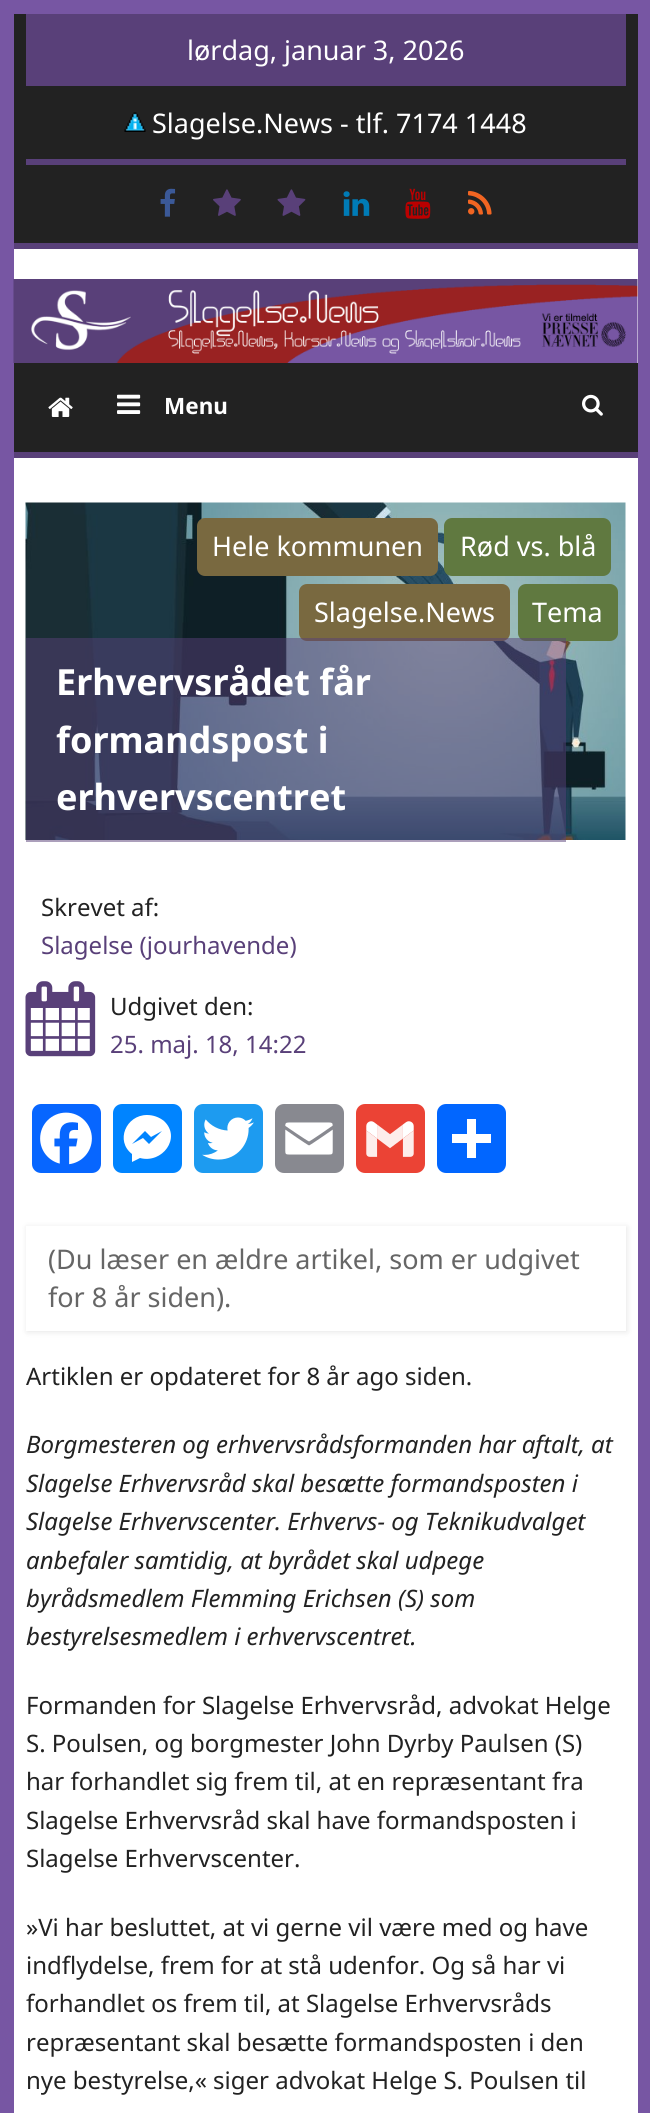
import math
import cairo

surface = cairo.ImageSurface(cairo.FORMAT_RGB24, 650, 2113)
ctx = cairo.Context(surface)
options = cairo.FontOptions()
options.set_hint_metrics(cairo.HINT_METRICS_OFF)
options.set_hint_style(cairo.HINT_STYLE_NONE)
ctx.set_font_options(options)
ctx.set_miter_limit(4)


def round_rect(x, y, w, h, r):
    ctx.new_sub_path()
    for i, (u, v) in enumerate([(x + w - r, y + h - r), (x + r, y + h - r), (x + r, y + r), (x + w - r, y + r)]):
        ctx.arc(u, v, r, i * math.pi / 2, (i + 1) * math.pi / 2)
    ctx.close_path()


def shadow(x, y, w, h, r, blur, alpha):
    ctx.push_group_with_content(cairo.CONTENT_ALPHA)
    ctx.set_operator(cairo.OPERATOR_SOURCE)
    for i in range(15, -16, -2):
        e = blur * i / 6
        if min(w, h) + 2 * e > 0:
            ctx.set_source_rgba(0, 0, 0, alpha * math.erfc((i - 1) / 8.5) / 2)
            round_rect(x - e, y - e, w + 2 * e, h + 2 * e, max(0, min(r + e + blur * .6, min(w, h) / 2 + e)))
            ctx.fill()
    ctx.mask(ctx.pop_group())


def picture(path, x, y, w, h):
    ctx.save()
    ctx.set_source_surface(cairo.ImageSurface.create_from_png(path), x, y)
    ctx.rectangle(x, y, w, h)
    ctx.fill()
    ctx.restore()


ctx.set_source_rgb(0.467, 0.337, 0.639)
ctx.paint()
ctx.set_source_rgb(0.133, 0.133, 0.133)
ctx.rectangle(14, 14, 624, 229)
ctx.fill()
ctx.set_source_rgb(0.349, 0.251, 0.475)
ctx.rectangle(14, 243, 624, 6)
ctx.fill()
ctx.rectangle(26, 14, 600, 72)
ctx.fill()
ctx.select_font_face("Noto Sans")
ctx.set_font_size(27)
ctx.set_source_rgb(1, 1, 1)
ctx.move_to(187, 60)
ctx.show_text("lørdag, januar 3, 2026")
picture("img1.png", 124, 112, 22, 20)
ctx.move_to(152, 133)
ctx.show_text("Slagelse.News - tlf. 7174 1448")
ctx.set_source_rgb(0.349, 0.251, 0.475)
ctx.rectangle(26, 159, 600, 6)
ctx.fill()
picture("img2.png", 160, 188, 16, 29)
picture("img3.png", 213, 189, 28, 27)
picture("img4.png", 277, 189, 29, 27)
picture("img5.png", 343, 191, 27, 25)
picture("img6.png", 405, 188, 26, 31)
picture("img7.png", 468, 190, 24, 25)
ctx.set_source_rgb(1, 1, 1)
ctx.rectangle(14, 249, 624, 30)
ctx.fill()
ctx.rectangle(637, 279, 1, 84)
ctx.fill()
picture("img8.png", 13, 279, 625, 84)
ctx.set_source_rgb(0.133, 0.133, 0.133)
ctx.rectangle(14, 363, 624, 89)
ctx.fill()
ctx.set_source_rgb(0.349, 0.251, 0.475)
ctx.rectangle(14, 452, 624, 6)
ctx.fill()
picture("img9.png", 48, 397, 25, 20)
picture("img10.png", 117, 394, 24, 20)
ctx.select_font_face("Noto Sans", cairo.FONT_SLANT_NORMAL, cairo.FONT_WEIGHT_BOLD)
ctx.set_font_size(22.5)
ctx.set_source_rgb(1, 1, 1)
ctx.move_to(164, 414)
ctx.show_text("Menu")
picture("img11.png", 582, 394, 21, 22)
ctx.rectangle(14, 458, 624, 1655)
ctx.fill()
picture("img12.png", 25, 502, 601, 338)
ctx.set_source_rgb(0.475, 0.412, 0.251)
round_rect(197, 518, 241, 58, 8)
ctx.fill()
ctx.select_font_face("Noto Sans")
ctx.set_font_size(27)
ctx.set_source_rgb(1, 1, 1)
ctx.move_to(212, 556)
ctx.show_text("Hele kommunen")
ctx.set_source_rgb(0.376, 0.475, 0.251)
round_rect(444, 518, 167, 58, 8)
ctx.fill()
ctx.set_source_rgb(1, 1, 1)
ctx.move_to(460, 556)
ctx.show_text("Rød vs. blå")
ctx.set_source_rgb(0.475, 0.412, 0.251)
round_rect(299, 584, 211, 57, 8)
ctx.fill()
ctx.set_source_rgb(1, 1, 1)
ctx.move_to(314, 622)
ctx.show_text("Slagelse.News")
ctx.set_source_rgb(0.376, 0.475, 0.251)
round_rect(518, 584, 100, 57, 8)
ctx.fill()
ctx.set_source_rgb(1, 1, 1)
ctx.move_to(532, 622)
ctx.show_text("Tema")
ctx.set_source_rgba(0.349, 0.251, 0.475, 0.5)
ctx.rectangle(26, 638, 540, 204)
ctx.fill()
ctx.select_font_face("Noto Sans", cairo.FONT_SLANT_NORMAL, cairo.FONT_WEIGHT_BOLD)
ctx.set_font_size(36)
ctx.set_source_rgb(1, 1, 1)
ctx.move_to(56, 695)
ctx.show_text("Erhvervsrådet får")
ctx.move_to(56, 753)
ctx.show_text("formandspost i")
ctx.move_to(56, 810)
ctx.show_text("erhvervscentret")
ctx.select_font_face("Noto Sans")
ctx.set_font_size(24)
ctx.set_source_rgb(0.133, 0.133, 0.133)
ctx.move_to(41, 916)
ctx.show_text("Skrevet af:")
ctx.set_source_rgb(0.349, 0.251, 0.475)
ctx.move_to(41, 954)
ctx.show_text("Slagelse (jourhavende)")
picture("img13.png", 25, 981, 71, 76)
ctx.set_source_rgb(0.133, 0.133, 0.133)
ctx.move_to(110, 1015)
ctx.show_text("Udgivet den:")
ctx.set_source_rgb(0.349, 0.251, 0.475)
ctx.move_to(110, 1053)
ctx.show_text("25. maj. 18, 14:22")
ctx.set_source_rgb(0.031, 0.4, 1)
round_rect(32, 1104, 69, 69, 9)
ctx.fill()
picture("img14.png", 40, 1112, 52, 53)
ctx.set_source_rgb(0, 0.518, 1)
round_rect(113, 1104, 69, 69, 9)
ctx.fill()
ctx.set_source_rgb(1, 1, 1)
ctx.new_path()
ctx.move_to(147, 1115)
ctx.curve_to(126, 1115, 115, 1141, 132, 1154)
ctx.line_to(132, 1162)
ctx.line_to(140, 1158)
ctx.curve_to(162, 1164, 182, 1138, 164, 1121)
ctx.curve_to(159, 1117, 153, 1115, 147, 1115)
ctx.move_to(149, 1144)
ctx.line_to(143, 1138)
ctx.line_to(132, 1144)
ctx.line_to(145, 1131)
ctx.line_to(151, 1137)
ctx.line_to(162, 1131)
ctx.close_path()
ctx.fill()
ctx.set_source_rgb(0.114, 0.608, 0.941)
round_rect(194, 1104, 69, 69, 9)
ctx.fill()
picture("img15.png", 202, 1117, 52, 43)
ctx.set_source_rgb(0.533, 0.537, 0.565)
round_rect(275, 1104, 69, 69, 9)
ctx.fill()
picture("img16.png", 285, 1122, 48, 33)
ctx.set_source_rgb(0.918, 0.263, 0.208)
round_rect(356, 1104, 69, 69, 9)
ctx.fill()
picture("img17.png", 366, 1121, 48, 36)
ctx.set_source_rgb(0.004, 0.4, 1)
round_rect(437, 1104, 69, 69, 9)
ctx.fill()
ctx.set_source_rgb(1, 1, 1)
ctx.rectangle(467, 1119, 9, 39)
ctx.fill()
ctx.rectangle(452, 1134, 39, 9)
ctx.fill()
ctx.set_source_rgb(0, 0, 0)
shadow(27, 1227, 600, 105, 0, 3, 0.1)
ctx.set_source_rgb(1, 1, 1)
ctx.rectangle(26, 1226, 600, 105)
ctx.fill()
ctx.set_font_size(27)
ctx.set_source_rgb(0.4, 0.4, 0.4)
ctx.move_to(48, 1269)
ctx.show_text("(Du læser en ældre artikel, som er udgivet")
ctx.move_to(48, 1307)
ctx.show_text("for 8 år siden).")
ctx.set_font_size(24)
ctx.set_source_rgb(0.133, 0.133, 0.133)
ctx.move_to(26, 1385)
ctx.show_text("Artiklen er opdateret for 8 år ago siden.")
ctx.select_font_face("Noto Sans", cairo.FONT_SLANT_ITALIC)
ctx.move_to(26, 1453)
ctx.show_text("Borgmesteren og erhvervsrådsformanden har aftalt, at")
ctx.move_to(26, 1492)
ctx.show_text("Slagelse Erhvervsråd skal besætte formandsposten i")
ctx.move_to(26, 1530)
ctx.show_text("Slagelse Erhvervscenter. Erhvervs- og Teknikudvalget")
ctx.move_to(26, 1569)
ctx.show_text("anbefaler samtidig, at byrådet skal udpege")
ctx.move_to(26, 1607)
ctx.show_text("byrådsmedlem Flemming Erichsen (S) som")
ctx.move_to(26, 1645)
ctx.show_text("bestyrelsesmedlem i erhvervscentret.")
ctx.select_font_face("Noto Sans")
ctx.move_to(26, 1714)
ctx.show_text("Formanden for Slagelse Erhvervsråd, advokat Helge")
ctx.move_to(26, 1752)
ctx.show_text("S. Poulsen, og borgmester John Dyrby Paulsen (S)")
ctx.move_to(26, 1790)
ctx.show_text("har forhandlet sig frem til, at en repræsentant fra")
ctx.move_to(26, 1829)
ctx.show_text("Slagelse Erhvervsråd skal have formandsposten i")
ctx.move_to(26, 1867)
ctx.show_text("Slagelse Erhvervscenter.")
ctx.move_to(26, 1936)
ctx.show_text("»Vi har besluttet, at vi gerne vil være med og have")
ctx.move_to(26, 1974)
ctx.show_text("indflydelse, frem for at stå udenfor. Og så har vi")
ctx.move_to(26, 2012)
ctx.show_text("forhandlet os frem til, at Slagelse Erhvervsråds")
ctx.move_to(26, 2051)
ctx.show_text("repræsentant skal besætte formandsposten i den")
ctx.move_to(26, 2089)
ctx.show_text("nye bestyrelse,« siger advokat Helge S. Poulsen til")
surface.write_to_png("page.png")
